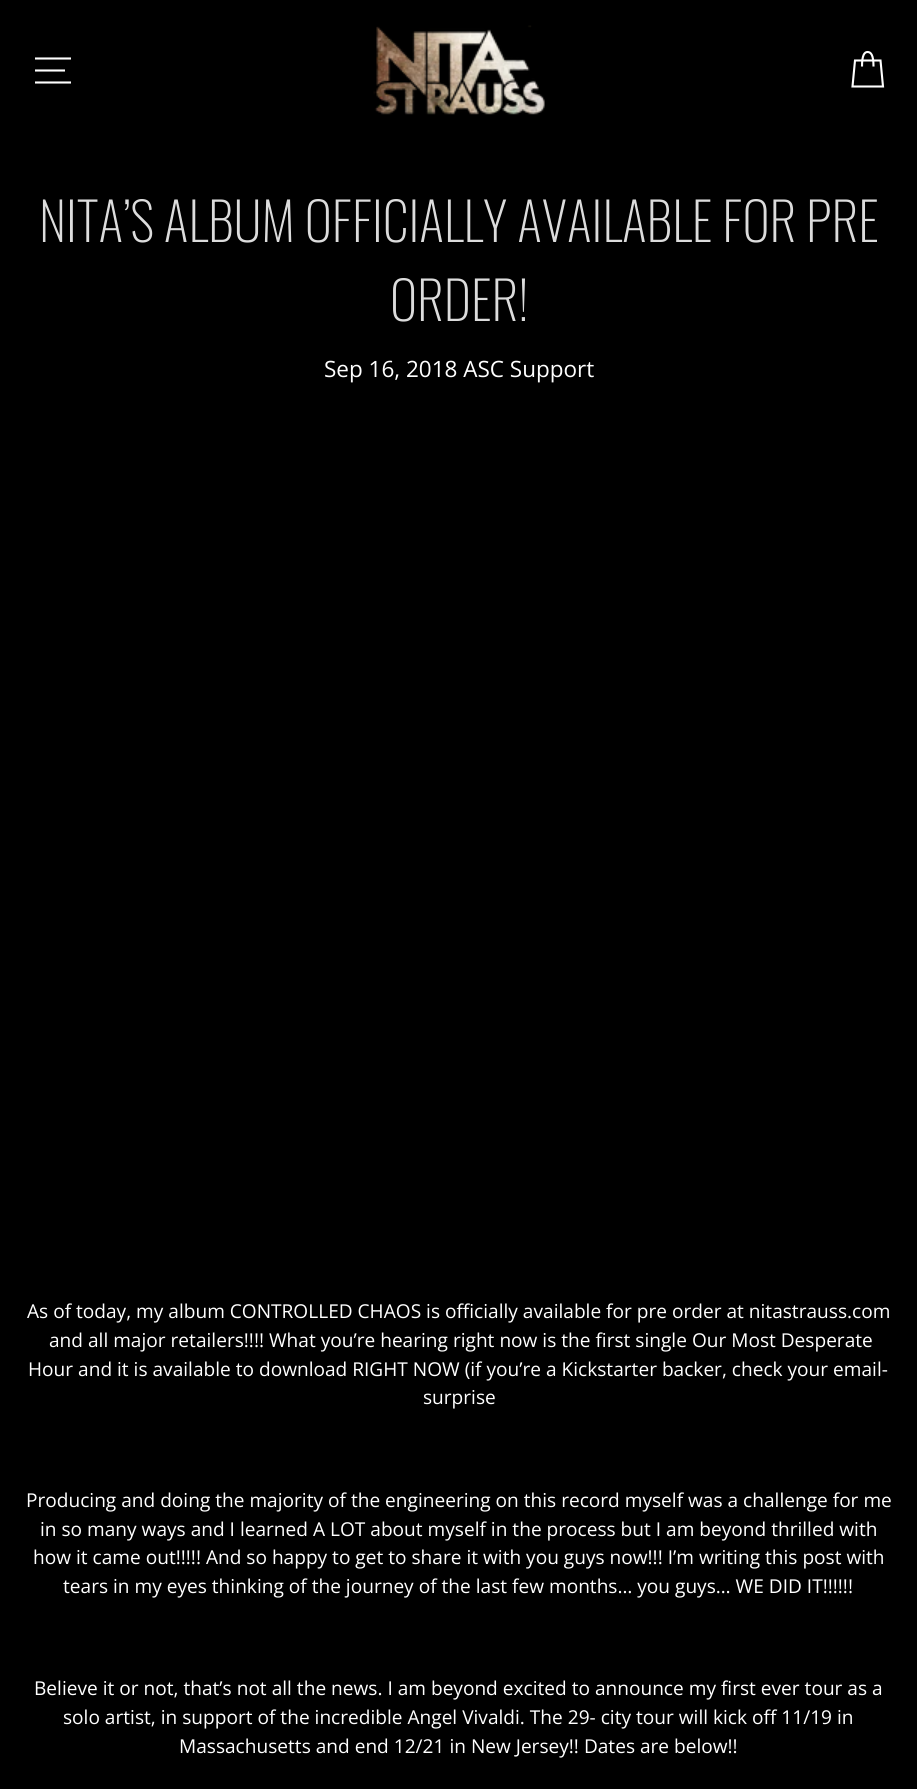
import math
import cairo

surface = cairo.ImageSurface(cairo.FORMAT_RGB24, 917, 1789)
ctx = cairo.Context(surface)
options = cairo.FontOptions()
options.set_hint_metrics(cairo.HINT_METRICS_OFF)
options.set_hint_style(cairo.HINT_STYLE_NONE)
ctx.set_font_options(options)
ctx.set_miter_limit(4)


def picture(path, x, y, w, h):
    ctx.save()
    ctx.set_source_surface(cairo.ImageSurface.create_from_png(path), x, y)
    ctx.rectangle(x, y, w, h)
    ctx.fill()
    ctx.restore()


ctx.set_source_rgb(0, 0, 0)
ctx.paint()
ctx.new_path()
ctx.move_to(35, 58.5)
ctx.line_to(71, 58.5)
ctx.move_to(35, 70.5)
ctx.line_to(65, 70.5)
ctx.move_to(35, 82.5)
ctx.line_to(71, 82.5)
ctx.set_source_rgb(1, 1, 1)
ctx.set_line_width(2.1)
ctx.stroke()
picture("img1.png", 373, 25, 172, 90)
ctx.new_path()
ctx.move_to(862, 66.5)
ctx.curve_to(862, 55, 864.5, 52, 867.5, 52)
ctx.curve_to(871, 52, 873.5, 55, 873.5, 66.5)
ctx.move_to(855, 60.5)
ctx.line_to(880.5, 60.5)
ctx.line_to(883, 86.5)
ctx.line_to(852.5, 86.5)
ctx.close_path()
ctx.stroke()
ctx.select_font_face("Oswald ExtraLight")
ctx.set_font_size(52.5)
ctx.set_source_rgb(0.863, 0.863, 0.863)
ctx.move_to(39, 242)
ctx.show_text("NITA’S ALBUM OFFICIALLY AVAILABLE FOR PRE")
ctx.move_to(390, 321)
ctx.show_text("ORDER!")
ctx.select_font_face("Open Sans")
ctx.set_font_size(22.5)
ctx.set_source_rgb(1, 1, 1)
ctx.move_to(324, 377)
ctx.show_text("Sep 16, 2018 ASC Support")
ctx.set_font_size(19.1)
ctx.move_to(27, 1318)
ctx.show_text("As of today, my album CONTROLLED CHAOS is officially available for pre order at nitastrauss.com")
ctx.move_to(49, 1347)
ctx.show_text("and all major retailers!!!! What you’re hearing right now is the first single Our Most Desperate")
ctx.move_to(28, 1376)
ctx.show_text("Hour and it is available to download RIGHT NOW (if you’re a Kickstarter backer, check your email-")
ctx.move_to(423, 1404)
ctx.show_text("surprise")
ctx.move_to(26, 1507)
ctx.show_text("Producing and doing the majority of the engineering on this record myself was a challenge for me")
ctx.move_to(40, 1536)
ctx.show_text("in so many ways and I learned A LOT about myself in the process but I am beyond thrilled with")
ctx.move_to(33, 1564)
ctx.show_text("how it came out!!!!! And so happy to get to share it with you guys now!!! I’m writing this post with")
ctx.move_to(63, 1593)
ctx.show_text("tears in my eyes thinking of the journey of the last few months… you guys… WE DID IT!!!!!!")
ctx.move_to(34, 1695)
ctx.show_text("Believe it or not, that’s not all the news. I am beyond excited to announce my first ever tour as a")
ctx.move_to(63, 1724)
ctx.show_text("solo artist, in support of the incredible Angel Vivaldi. The 29- city tour will kick off 11/19 in")
ctx.move_to(179, 1753)
ctx.show_text("Massachusetts and end 12/21 in New Jersey!! Dates are below!!")
surface.write_to_png("page.png")
